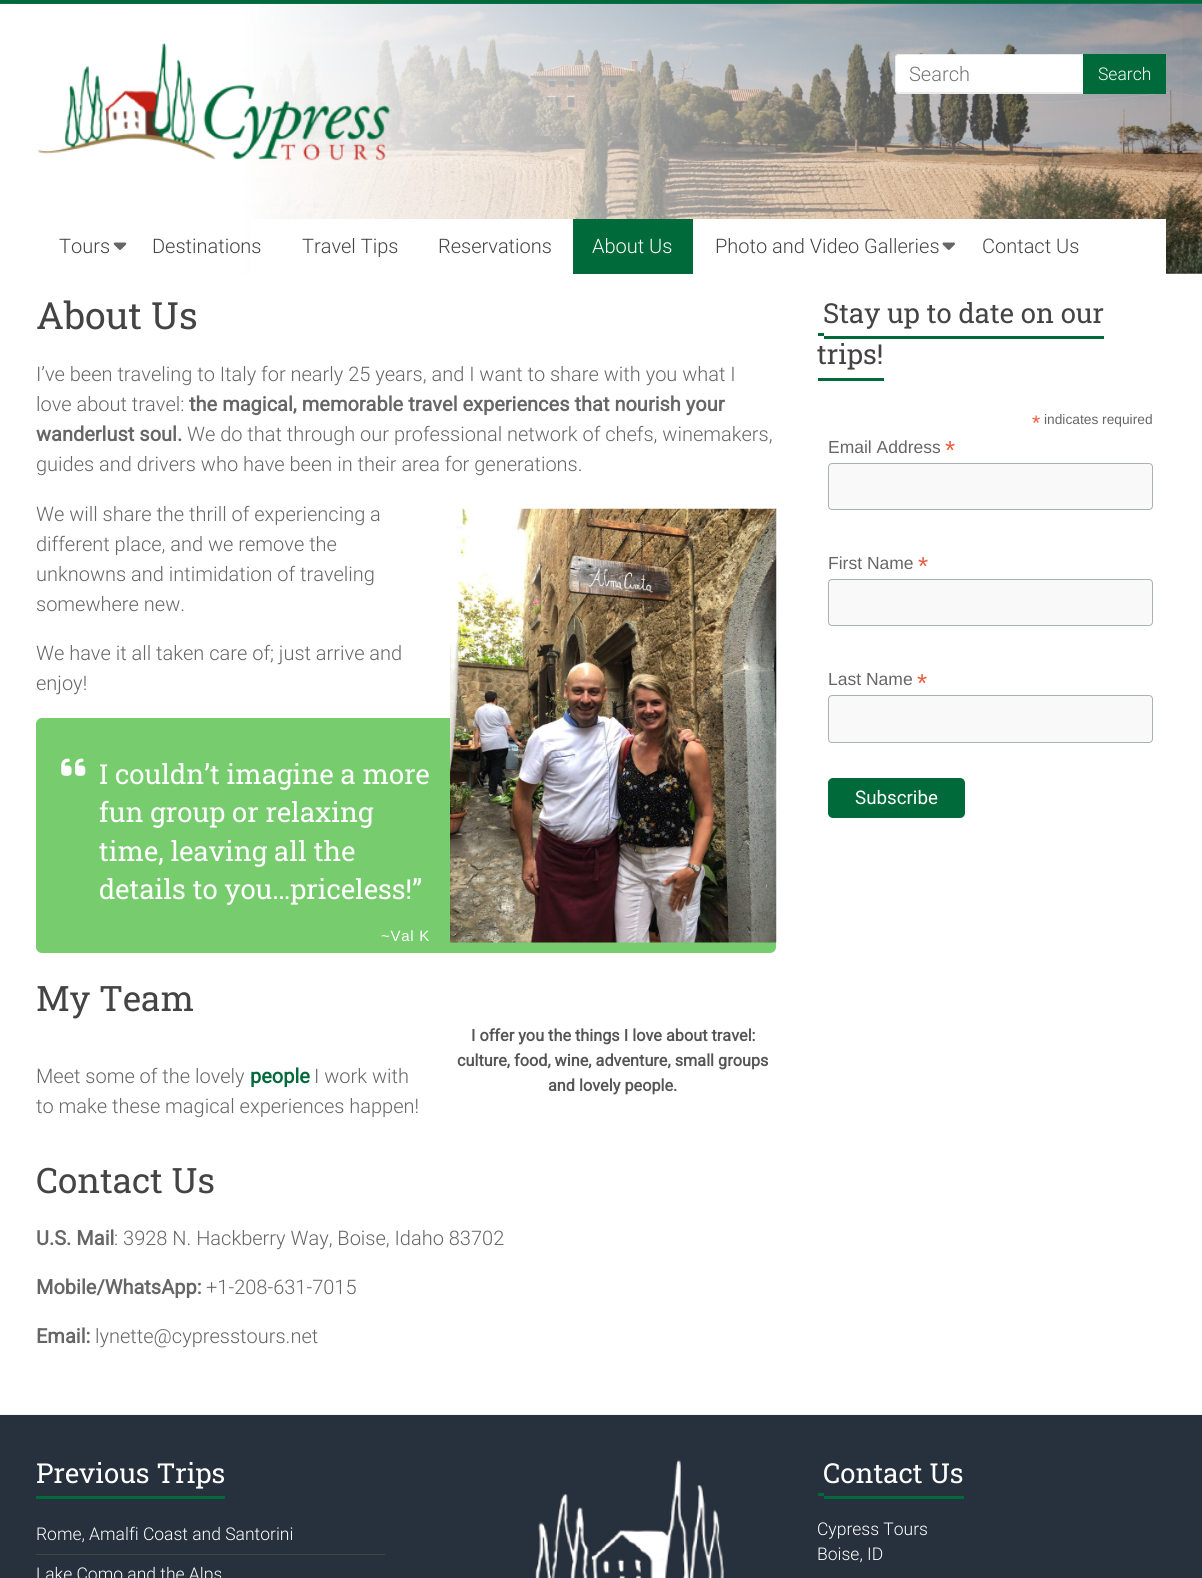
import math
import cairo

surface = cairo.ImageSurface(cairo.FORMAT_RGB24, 1202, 1578)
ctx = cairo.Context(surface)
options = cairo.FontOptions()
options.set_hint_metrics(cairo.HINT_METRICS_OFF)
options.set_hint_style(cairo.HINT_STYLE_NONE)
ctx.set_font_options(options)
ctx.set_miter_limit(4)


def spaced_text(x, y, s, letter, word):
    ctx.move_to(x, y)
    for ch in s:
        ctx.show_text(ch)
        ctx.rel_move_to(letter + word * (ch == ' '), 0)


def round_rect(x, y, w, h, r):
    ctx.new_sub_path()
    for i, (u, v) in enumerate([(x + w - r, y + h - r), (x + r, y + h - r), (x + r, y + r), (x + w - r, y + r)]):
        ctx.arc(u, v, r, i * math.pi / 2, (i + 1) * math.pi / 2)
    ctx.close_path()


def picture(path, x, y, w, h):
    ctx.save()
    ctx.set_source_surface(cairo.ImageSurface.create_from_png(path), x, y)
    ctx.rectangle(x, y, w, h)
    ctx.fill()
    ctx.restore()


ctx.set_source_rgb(1, 1, 1)
ctx.paint()
ctx.set_source_rgb(0, 0.416, 0.227)
ctx.rectangle(0, 0, 1202, 4)
ctx.fill()
picture("img1.png", 0, 3, 1202, 271)
gradient = cairo.LinearGradient(0, 139, 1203, 139)
gradient.add_color_stop_rgba(0.2, 1, 1, 1, 1)
gradient.add_color_stop_rgba(1, 1, 1, 1, 0)
ctx.set_source(gradient)
ctx.rectangle(0, 4, 1182, 270)
ctx.fill()
picture("img2.png", 37, 43, 354, 118)
ctx.set_source_rgb(1, 1, 1)
ctx.new_path()
ctx.move_to(899, 54)
ctx.line_to(1083, 54)
ctx.line_to(1083, 94)
ctx.line_to(899, 94)
ctx.curve_to(897, 94, 895, 92, 895, 90)
ctx.line_to(895, 58)
ctx.curve_to(895, 56, 897, 54, 899, 54)
ctx.close_path()
ctx.fill()
ctx.set_source_rgb(0.918, 0.918, 0.918)
ctx.set_fill_rule(cairo.FILL_RULE_EVEN_ODD)
ctx.new_path()
ctx.move_to(899, 54)
ctx.line_to(1082, 54)
ctx.line_to(1082, 94)
ctx.line_to(899, 94)
ctx.curve_to(897, 94, 895, 92, 895, 90)
ctx.line_to(895, 58)
ctx.curve_to(895, 55, 897, 54, 899, 54)
ctx.close_path()
ctx.move_to(899, 55)
ctx.line_to(1082, 55)
ctx.line_to(1082, 92)
ctx.line_to(899, 92)
ctx.curve_to(897, 92, 896, 91, 896, 90)
ctx.line_to(896, 58)
ctx.curve_to(896, 56, 897, 55, 899, 55)
ctx.close_path()
ctx.fill()
ctx.select_font_face("Roboto Light")
ctx.set_font_size(20)
ctx.set_source_rgb(0.459, 0.459, 0.459)
ctx.move_to(909, 81)
ctx.show_text("Search")
ctx.set_source_rgb(0, 0.416, 0.227)
ctx.rectangle(1083, 54, 83, 40)
ctx.fill()
ctx.set_font_size(17.5)
ctx.set_source_rgb(1, 1, 1)
ctx.move_to(1098, 80)
ctx.show_text("Search")
ctx.rectangle(250, 219, 916, 55)
ctx.fill()
ctx.set_font_size(20)
ctx.set_source_rgb(0.267, 0.267, 0.267)
ctx.move_to(59, 253)
ctx.show_text("Tours")
picture("img3.png", 113, 242, 14, 8)
ctx.move_to(152, 253)
ctx.show_text("Destinations")
ctx.move_to(302, 253)
ctx.show_text("Travel Tips")
ctx.move_to(438, 253)
ctx.show_text("Reservations")
ctx.set_source_rgb(0, 0.416, 0.227)
ctx.rectangle(573, 219, 120, 55)
ctx.fill()
ctx.set_source_rgb(1, 1, 1)
ctx.move_to(592, 253)
ctx.show_text("About Us")
ctx.set_source_rgb(0.267, 0.267, 0.267)
ctx.move_to(715, 253)
ctx.show_text("Photo and Video Galleries")
picture("img4.png", 942, 242, 13, 8)
ctx.move_to(982, 253)
ctx.show_text("Contact Us")
ctx.select_font_face("Roboto Slab")
ctx.set_font_size(37.5)
ctx.move_to(36, 329)
ctx.show_text("About Us")
ctx.select_font_face("Roboto Light")
ctx.set_font_size(20)
ctx.set_source_rgb(0.4, 0.4, 0.4)
ctx.move_to(36, 381)
ctx.show_text("I’ve been traveling to Italy for nearly 25 years, and I want to share with you what I")
ctx.move_to(36, 411)
ctx.show_text("love about travel:")
ctx.select_font_face("Roboto", cairo.FONT_SLANT_NORMAL, cairo.FONT_WEIGHT_BOLD)
ctx.move_to(189, 411)
ctx.show_text("the magical, memorable travel experiences that nourish your")
ctx.move_to(36, 441)
ctx.show_text("wanderlust soul.")
ctx.select_font_face("Roboto Light")
ctx.move_to(187, 441)
ctx.show_text("We do that through our professional network of chefs, winemakers,")
ctx.move_to(36, 471)
ctx.show_text("guides and drivers who have been in their area for generations.")
ctx.move_to(36, 521)
ctx.show_text("We will share the thrill of experiencing a")
ctx.move_to(36, 551)
ctx.show_text("different place, and we remove the")
ctx.move_to(36, 581)
ctx.show_text("unknowns and intimidation of traveling")
ctx.move_to(36, 611)
ctx.show_text("somewhere new.")
ctx.move_to(36, 660)
ctx.show_text("We have it all taken care of; just arrive and")
ctx.move_to(36, 690)
ctx.show_text("enjoy!")
ctx.set_source_rgb(0.467, 0.8, 0.427)
round_rect(36, 718, 740, 235, 6)
ctx.fill()
picture("img5.png", 61, 758, 25, 18)
ctx.select_font_face("Roboto Slab")
ctx.set_font_size(27.5)
ctx.set_source_rgb(1, 1, 1)
ctx.move_to(99, 784)
ctx.show_text("I couldn’t imagine a more")
ctx.move_to(99, 822)
ctx.show_text("fun group or relaxing")
ctx.move_to(99, 861)
ctx.show_text("time, leaving all the")
ctx.move_to(99, 899)
ctx.show_text("details to you…priceless!”")
ctx.select_font_face("Liberation Sans")
ctx.set_font_size(15)
spaced_text(381, 941, "~Val K", 0.75, 0)
ctx.select_font_face("Roboto Slab")
ctx.set_font_size(35)
ctx.set_source_rgb(0.267, 0.267, 0.267)
ctx.move_to(36, 1011)
ctx.show_text("My Team")
ctx.select_font_face("Roboto Light")
ctx.set_font_size(20)
ctx.set_source_rgb(0.4, 0.4, 0.4)
ctx.move_to(36, 1083)
ctx.show_text("Meet some of the lovely")
ctx.select_font_face("Roboto", cairo.FONT_SLANT_NORMAL, cairo.FONT_WEIGHT_BOLD)
ctx.set_source_rgb(0, 0.416, 0.227)
ctx.move_to(250, 1083)
ctx.show_text("people")
ctx.select_font_face("Roboto Light")
ctx.set_source_rgb(0.4, 0.4, 0.4)
ctx.move_to(314, 1083)
ctx.show_text("I work with")
ctx.move_to(36, 1113)
ctx.show_text("to make these magical experiences happen!")
picture("img6.png", 450, 508, 327, 435)
ctx.select_font_face("Roboto", cairo.FONT_SLANT_NORMAL, cairo.FONT_WEIGHT_BOLD)
ctx.set_font_size(16.25)
ctx.set_source_rgb(0.333, 0.333, 0.333)
ctx.move_to(471, 1041)
ctx.show_text("I offer you the things I love about travel:")
ctx.move_to(457, 1066)
ctx.show_text("culture, food, wine, adventure, small groups")
ctx.move_to(548, 1091)
ctx.show_text("and lovely people.")
ctx.select_font_face("Roboto Slab")
ctx.set_font_size(35)
ctx.set_source_rgb(0.267, 0.267, 0.267)
ctx.move_to(36, 1193)
ctx.show_text("Contact Us")
ctx.select_font_face("Roboto", cairo.FONT_SLANT_NORMAL, cairo.FONT_WEIGHT_BOLD)
ctx.set_font_size(20)
ctx.set_source_rgb(0.4, 0.4, 0.4)
ctx.move_to(36, 1245)
ctx.show_text("U.S. Mail")
ctx.select_font_face("Roboto Light")
ctx.move_to(114, 1245)
ctx.show_text(": 3928 N. Hackberry Way, Boise, Idaho 83702")
ctx.select_font_face("Roboto", cairo.FONT_SLANT_NORMAL, cairo.FONT_WEIGHT_BOLD)
ctx.move_to(36, 1294)
ctx.show_text("Mobile/WhatsApp:")
ctx.select_font_face("Roboto Light")
ctx.move_to(206, 1294)
ctx.show_text("+1-208-631-7015")
ctx.select_font_face("Roboto", cairo.FONT_SLANT_NORMAL, cairo.FONT_WEIGHT_BOLD)
ctx.move_to(36, 1343)
ctx.show_text("Email:")
ctx.select_font_face("Roboto Light")
ctx.move_to(95, 1343)
ctx.show_text("lynette@cypresstours.net")
ctx.select_font_face("Roboto Slab")
ctx.set_font_size(27.5)
ctx.set_source_rgb(0.267, 0.267, 0.267)
ctx.move_to(823, 323)
ctx.show_text("Stay up to date on our")
ctx.set_source_rgb(0, 0.416, 0.227)
ctx.rectangle(818, 333, 6, 3)
ctx.fill()
ctx.set_source_rgb(0.267, 0.267, 0.267)
ctx.move_to(817, 364)
ctx.show_text("trips!")
ctx.set_source_rgb(0, 0.416, 0.227)
ctx.rectangle(824, 336, 280, 3)
ctx.fill()
ctx.rectangle(818, 378, 66, 3)
ctx.fill()
ctx.select_font_face("Liberation Sans")
ctx.set_font_size(21)
ctx.set_source_rgb(0.91, 0.361, 0.255)
ctx.move_to(1032, 430)
ctx.show_text("*")
ctx.set_font_size(13.75)
ctx.set_source_rgb(0.4, 0.4, 0.4)
ctx.move_to(1044, 424)
ctx.show_text("indicates required")
ctx.set_font_size(17.5)
ctx.move_to(828, 453)
ctx.show_text("Email Address")
ctx.set_font_size(26)
ctx.set_source_rgb(0.91, 0.361, 0.255)
ctx.move_to(945, 459)
ctx.show_text("*")
ctx.set_source_rgb(0.973, 0.973, 0.973)
round_rect(828.5, 463.5, 324, 46, 3.5)
ctx.fill_preserve()
ctx.set_source_rgb(0.671, 0.69, 0.698)
ctx.set_line_width(1)
ctx.stroke()
ctx.set_font_size(17.5)
ctx.set_source_rgb(0.4, 0.4, 0.4)
ctx.move_to(828, 569)
ctx.show_text("First Name")
ctx.set_font_size(26)
ctx.set_source_rgb(0.91, 0.361, 0.255)
ctx.move_to(918, 575)
ctx.show_text("*")
ctx.set_source_rgb(0.973, 0.973, 0.973)
round_rect(828.5, 579.5, 324, 46, 3.5)
ctx.fill_preserve()
ctx.set_source_rgb(0.671, 0.69, 0.698)
ctx.stroke()
ctx.set_font_size(17.5)
ctx.set_source_rgb(0.4, 0.4, 0.4)
ctx.move_to(828, 685)
ctx.show_text("Last Name")
ctx.set_font_size(26)
ctx.set_source_rgb(0.91, 0.361, 0.255)
ctx.move_to(917, 692)
ctx.show_text("*")
ctx.set_source_rgb(0.973, 0.973, 0.973)
round_rect(828.5, 695.5, 324, 47, 3.5)
ctx.fill_preserve()
ctx.set_source_rgb(0.671, 0.69, 0.698)
ctx.stroke()
ctx.set_source_rgb(0, 0.416, 0.227)
round_rect(828, 778, 137, 40, 5)
ctx.fill()
ctx.select_font_face("Roboto")
ctx.set_font_size(18.75)
ctx.set_source_rgb(1, 1, 1)
ctx.move_to(855, 804)
ctx.show_text("Subscribe")
ctx.set_source_rgb(0.153, 0.192, 0.239)
ctx.rectangle(0, 1415, 1202, 163)
ctx.fill()
ctx.set_source_rgb(0.949, 0.949, 0.949)
ctx.rectangle(0, 1414, 1202, 1)
ctx.fill()
ctx.select_font_face("Roboto Slab")
ctx.set_font_size(27.5)
ctx.set_source_rgb(1, 1, 1)
ctx.move_to(36, 1483)
ctx.show_text("Previous Trips")
ctx.set_source_rgb(0, 0.416, 0.227)
ctx.rectangle(36, 1496, 189, 3)
ctx.fill()
ctx.set_source_rgb(0.267, 0.267, 0.267)
ctx.rectangle(36, 1554, 349, 1)
ctx.fill()
ctx.select_font_face("Roboto Light")
ctx.set_font_size(17.5)
ctx.set_source_rgb(1, 1, 1)
ctx.move_to(36, 1540)
ctx.show_text("Rome, Amalfi Coast and Santorini")
ctx.move_to(36, 1580)
ctx.show_text("Lake Como and the Alps")
picture("img7.png", 535, 1460, 189, 118)
ctx.select_font_face("Roboto Slab")
ctx.set_font_size(27.5)
ctx.move_to(823, 1483)
ctx.show_text("Contact Us")
ctx.set_source_rgb(0, 0.416, 0.227)
ctx.rectangle(818, 1493, 6, 3)
ctx.fill()
ctx.rectangle(824, 1496, 140, 3)
ctx.fill()
ctx.select_font_face("Roboto Light")
ctx.set_font_size(17.5)
ctx.set_source_rgb(1, 1, 1)
ctx.move_to(817, 1535)
ctx.show_text("Cypress Tours")
ctx.move_to(817, 1560)
ctx.show_text("Boise, ID")
surface.write_to_png("page.png")
